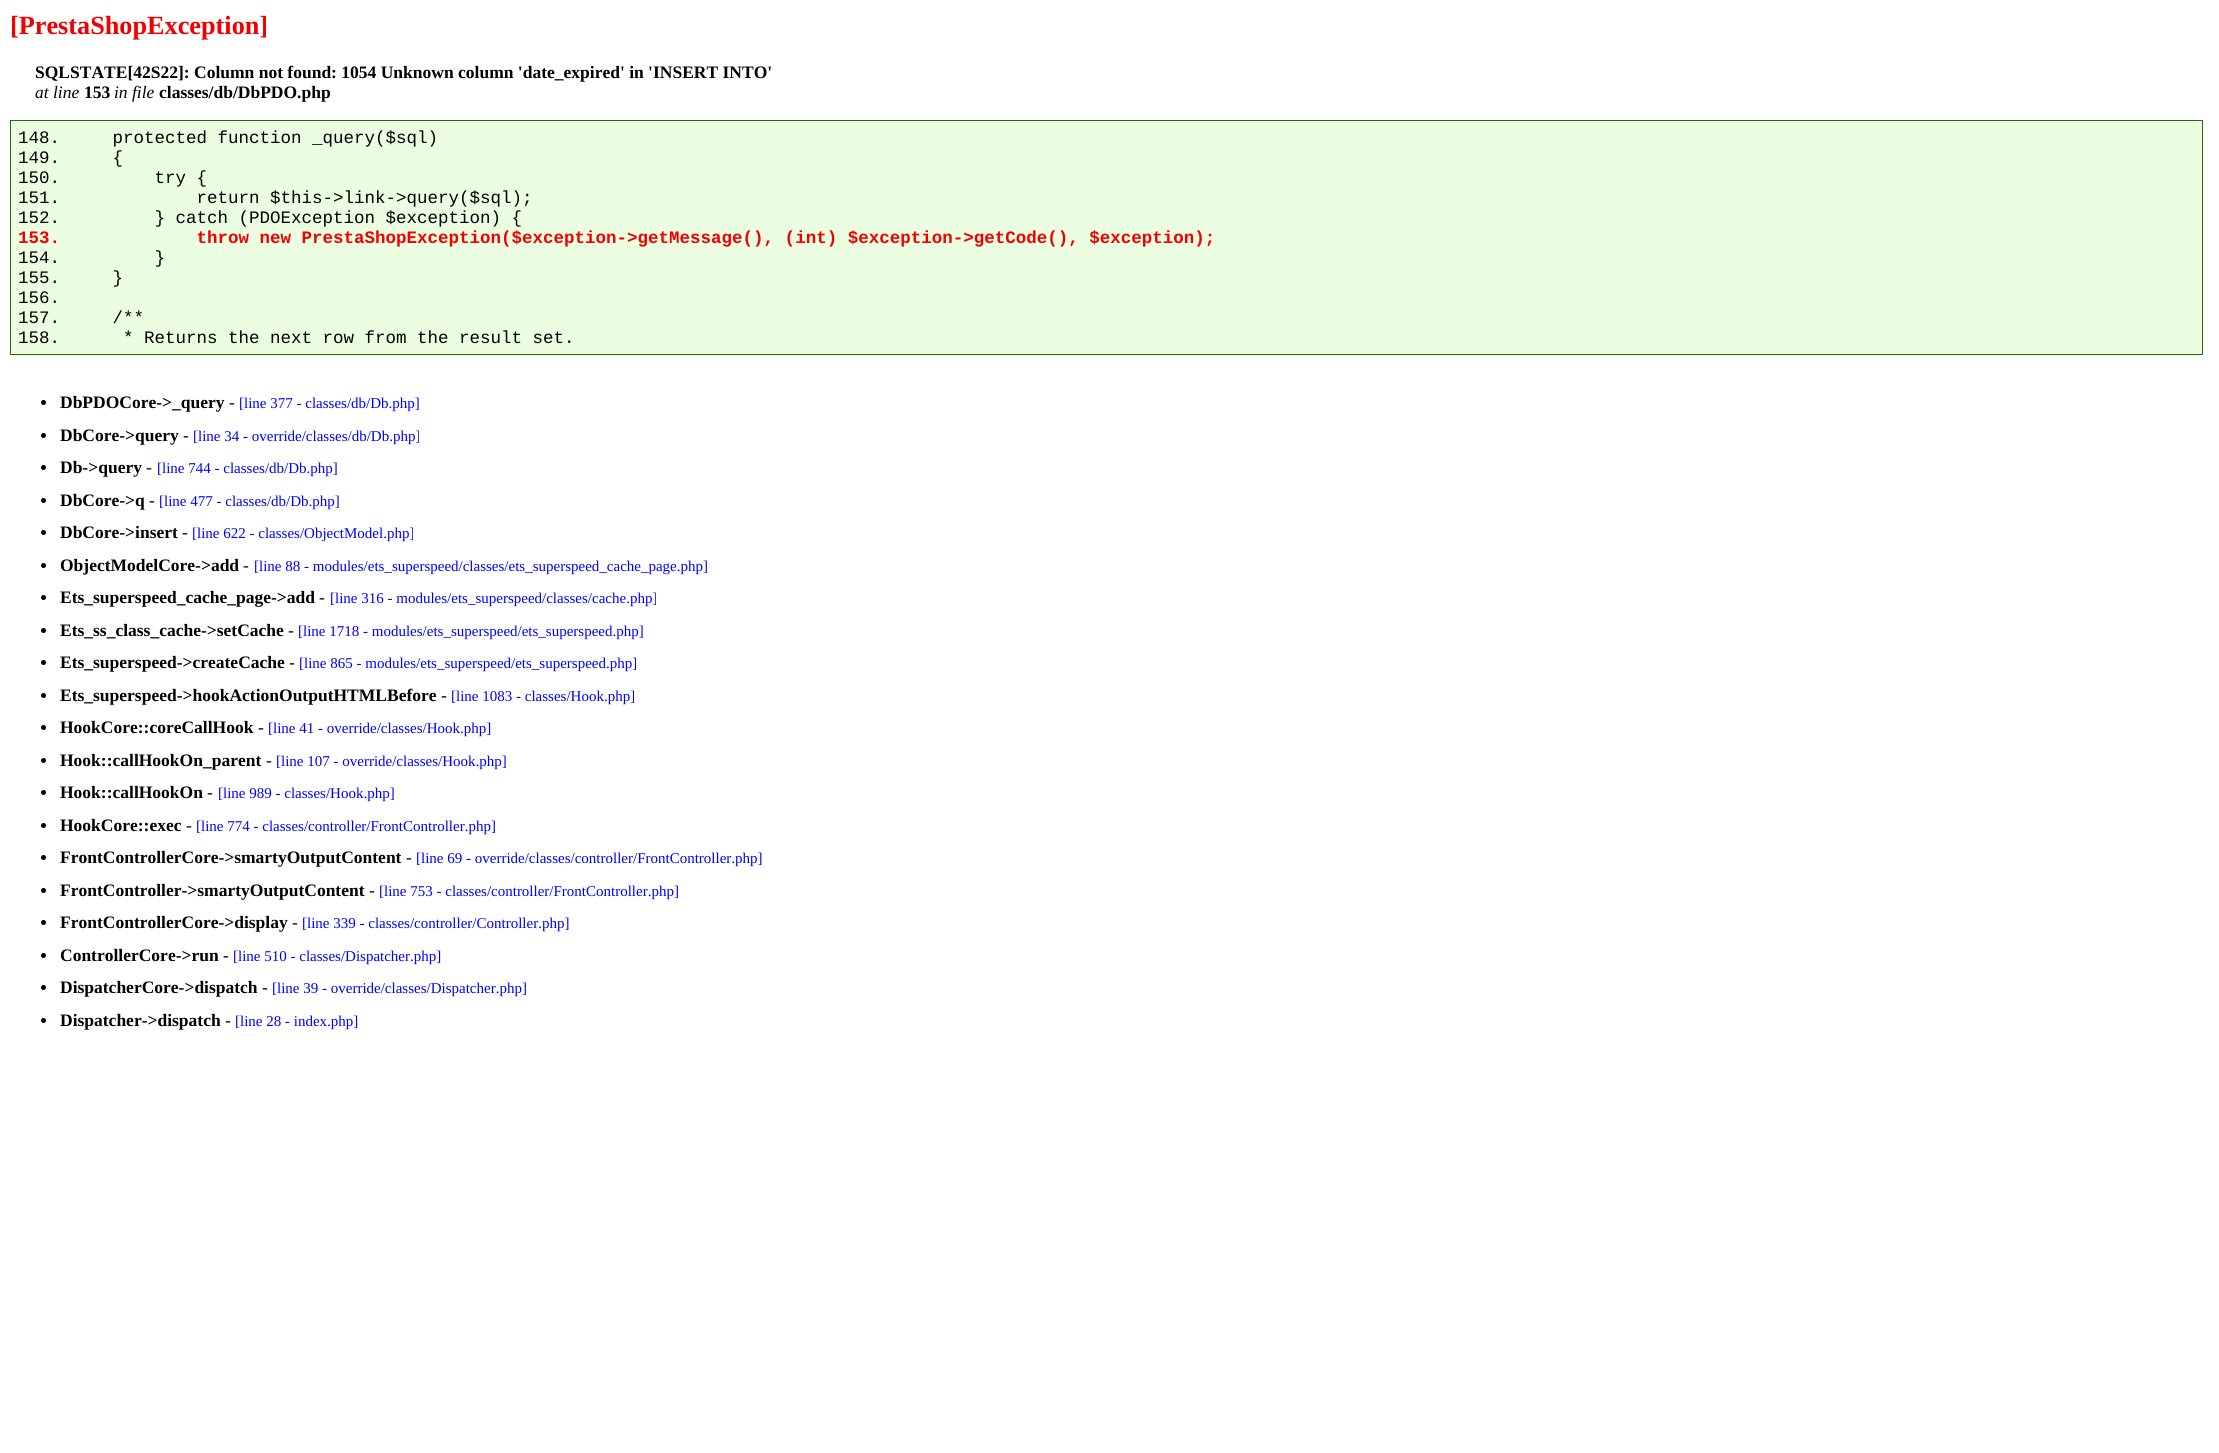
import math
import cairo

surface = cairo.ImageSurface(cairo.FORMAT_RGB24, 2219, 1453)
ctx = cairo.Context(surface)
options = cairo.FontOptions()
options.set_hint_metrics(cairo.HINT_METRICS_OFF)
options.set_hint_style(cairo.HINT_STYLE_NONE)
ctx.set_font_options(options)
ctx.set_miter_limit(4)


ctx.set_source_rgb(1, 1, 1)
ctx.paint()
ctx.select_font_face("Liberation Serif", cairo.FONT_SLANT_NORMAL, cairo.FONT_WEIGHT_BOLD)
ctx.set_font_size(26.25)
ctx.set_source_rgb(0.949, 0, 0)
ctx.move_to(10, 34)
ctx.show_text("[PrestaShopException]")
ctx.set_font_size(17.5)
ctx.set_source_rgb(0, 0, 0)
ctx.move_to(35, 78)
ctx.show_text("SQLSTATE[42S22]: Column not found: 1054 Unknown column 'date_expired' in 'INSERT INTO'")
ctx.select_font_face("Liberation Serif", cairo.FONT_SLANT_ITALIC)
ctx.move_to(35, 98)
ctx.show_text("at line")
ctx.select_font_face("Liberation Serif", cairo.FONT_SLANT_NORMAL, cairo.FONT_WEIGHT_BOLD)
ctx.move_to(84, 98)
ctx.show_text("153")
ctx.select_font_face("Liberation Serif", cairo.FONT_SLANT_ITALIC)
ctx.move_to(114, 98)
ctx.show_text("in file")
ctx.select_font_face("Liberation Serif", cairo.FONT_SLANT_NORMAL, cairo.FONT_WEIGHT_BOLD)
ctx.move_to(159, 98)
ctx.show_text("classes/db/DbPDO.php")
ctx.set_source_rgb(0.918, 0.996, 0.882)
ctx.rectangle(10.5, 120.5, 2192, 234)
ctx.fill_preserve()
ctx.set_source_rgb(0.137, 0.42, 0.016)
ctx.set_line_width(1)
ctx.stroke()
ctx.select_font_face("Liberation Mono")
ctx.set_source_rgb(0, 0, 0)
ctx.move_to(18, 143)
ctx.show_text("148.     protected function _query($sql)")
ctx.move_to(18, 163)
ctx.show_text("149.     {")
ctx.move_to(18, 183)
ctx.show_text("150.         try {")
ctx.move_to(18, 203)
ctx.show_text("151.             return $this->link->query($sql);")
ctx.move_to(18, 223)
ctx.show_text("152.         } catch (PDOException $exception) {")
ctx.select_font_face("Liberation Mono", cairo.FONT_SLANT_NORMAL, cairo.FONT_WEIGHT_BOLD)
ctx.set_source_rgb(0.949, 0, 0)
ctx.move_to(18, 243)
ctx.show_text("153.             throw new PrestaShopException($exception->getMessage(), (int) $exception->getCode(), $exception);")
ctx.select_font_face("Liberation Mono")
ctx.set_source_rgb(0, 0, 0)
ctx.move_to(18, 263)
ctx.show_text("154.         }")
ctx.move_to(18, 283)
ctx.show_text("155.     }")
ctx.move_to(18, 303)
ctx.show_text("156.")
ctx.move_to(18, 323)
ctx.show_text("157.     /**")
ctx.move_to(18, 343)
ctx.show_text("158.      * Returns the next row from the result set.")
ctx.new_path()
ctx.arc(43.5, 402.5, 2.5, 0, 2 * math.pi)
ctx.fill()
ctx.select_font_face("Liberation Serif", cairo.FONT_SLANT_NORMAL, cairo.FONT_WEIGHT_BOLD)
ctx.move_to(60, 408)
ctx.show_text("DbPDOCore->_query")
ctx.select_font_face("Liberation Serif")
ctx.move_to(229, 408)
ctx.show_text("-")
ctx.set_font_size(15)
ctx.set_source_rgb(0, 0, 1)
ctx.move_to(239, 408)
ctx.show_text("[line 377 - classes/db/Db.php]")
ctx.set_source_rgb(0, 0, 0)
ctx.new_path()
ctx.arc(43.5, 435.5, 2.5, 0, 2 * math.pi)
ctx.fill()
ctx.select_font_face("Liberation Serif", cairo.FONT_SLANT_NORMAL, cairo.FONT_WEIGHT_BOLD)
ctx.set_font_size(17.5)
ctx.move_to(60, 441)
ctx.show_text("DbCore->query")
ctx.select_font_face("Liberation Serif")
ctx.move_to(183, 441)
ctx.show_text("-")
ctx.set_font_size(15)
ctx.set_source_rgb(0, 0, 1)
ctx.move_to(193, 441)
ctx.show_text("[line 34 - override/classes/db/Db.php]")
ctx.set_source_rgb(0, 0, 0)
ctx.new_path()
ctx.arc(43.5, 467.5, 2.5, 0, 2 * math.pi)
ctx.fill()
ctx.select_font_face("Liberation Serif", cairo.FONT_SLANT_NORMAL, cairo.FONT_WEIGHT_BOLD)
ctx.set_font_size(17.5)
ctx.move_to(60, 473)
ctx.show_text("Db->query")
ctx.select_font_face("Liberation Serif")
ctx.move_to(146, 473)
ctx.show_text("-")
ctx.set_font_size(15)
ctx.set_source_rgb(0, 0, 1)
ctx.move_to(157, 473)
ctx.show_text("[line 744 - classes/db/Db.php]")
ctx.set_source_rgb(0, 0, 0)
ctx.new_path()
ctx.arc(43.5, 500.5, 2.5, 0, 2 * math.pi)
ctx.fill()
ctx.select_font_face("Liberation Serif", cairo.FONT_SLANT_NORMAL, cairo.FONT_WEIGHT_BOLD)
ctx.set_font_size(17.5)
ctx.move_to(60, 506)
ctx.show_text("DbCore->q")
ctx.select_font_face("Liberation Serif")
ctx.move_to(149, 506)
ctx.show_text("-")
ctx.set_font_size(15)
ctx.set_source_rgb(0, 0, 1)
ctx.move_to(159, 506)
ctx.show_text("[line 477 - classes/db/Db.php]")
ctx.set_source_rgb(0, 0, 0)
ctx.new_path()
ctx.arc(43.5, 532.5, 2.5, 0, 2 * math.pi)
ctx.fill()
ctx.select_font_face("Liberation Serif", cairo.FONT_SLANT_NORMAL, cairo.FONT_WEIGHT_BOLD)
ctx.set_font_size(17.5)
ctx.move_to(60, 538)
ctx.show_text("DbCore->insert")
ctx.select_font_face("Liberation Serif")
ctx.move_to(182, 538)
ctx.show_text("-")
ctx.set_font_size(15)
ctx.set_source_rgb(0, 0, 1)
ctx.move_to(192, 538)
ctx.show_text("[line 622 - classes/ObjectModel.php]")
ctx.set_source_rgb(0, 0, 0)
ctx.new_path()
ctx.arc(43.5, 565.5, 2.5, 0, 2 * math.pi)
ctx.fill()
ctx.select_font_face("Liberation Serif", cairo.FONT_SLANT_NORMAL, cairo.FONT_WEIGHT_BOLD)
ctx.set_font_size(17.5)
ctx.move_to(60, 571)
ctx.show_text("ObjectModelCore->add")
ctx.select_font_face("Liberation Serif")
ctx.move_to(243, 571)
ctx.show_text("-")
ctx.set_font_size(15)
ctx.set_source_rgb(0, 0, 1)
ctx.move_to(254, 571)
ctx.show_text("[line 88 - modules/ets_superspeed/classes/ets_superspeed_cache_page.php]")
ctx.set_source_rgb(0, 0, 0)
ctx.new_path()
ctx.arc(43.5, 597.5, 2.5, 0, 2 * math.pi)
ctx.fill()
ctx.select_font_face("Liberation Serif", cairo.FONT_SLANT_NORMAL, cairo.FONT_WEIGHT_BOLD)
ctx.set_font_size(17.5)
ctx.move_to(60, 603)
ctx.show_text("Ets_superspeed_cache_page->add")
ctx.select_font_face("Liberation Serif")
ctx.move_to(319, 603)
ctx.show_text("-")
ctx.set_font_size(15)
ctx.set_source_rgb(0, 0, 1)
ctx.move_to(330, 603)
ctx.show_text("[line 316 - modules/ets_superspeed/classes/cache.php]")
ctx.set_source_rgb(0, 0, 0)
ctx.new_path()
ctx.arc(43.5, 630.5, 2.5, 0, 2 * math.pi)
ctx.fill()
ctx.select_font_face("Liberation Serif", cairo.FONT_SLANT_NORMAL, cairo.FONT_WEIGHT_BOLD)
ctx.set_font_size(17.5)
ctx.move_to(60, 636)
ctx.show_text("Ets_ss_class_cache->setCache")
ctx.select_font_face("Liberation Serif")
ctx.move_to(288, 636)
ctx.show_text("-")
ctx.set_font_size(15)
ctx.set_source_rgb(0, 0, 1)
ctx.move_to(298, 636)
ctx.show_text("[line 1718 - modules/ets_superspeed/ets_superspeed.php]")
ctx.set_source_rgb(0, 0, 0)
ctx.new_path()
ctx.arc(43.5, 662.5, 2.5, 0, 2 * math.pi)
ctx.fill()
ctx.select_font_face("Liberation Serif", cairo.FONT_SLANT_NORMAL, cairo.FONT_WEIGHT_BOLD)
ctx.set_font_size(17.5)
ctx.move_to(60, 668)
ctx.show_text("Ets_superspeed->createCache")
ctx.select_font_face("Liberation Serif")
ctx.move_to(289, 668)
ctx.show_text("-")
ctx.set_font_size(15)
ctx.set_source_rgb(0, 0, 1)
ctx.move_to(299, 668)
ctx.show_text("[line 865 - modules/ets_superspeed/ets_superspeed.php]")
ctx.set_source_rgb(0, 0, 0)
ctx.new_path()
ctx.arc(43.5, 695.5, 2.5, 0, 2 * math.pi)
ctx.fill()
ctx.select_font_face("Liberation Serif", cairo.FONT_SLANT_NORMAL, cairo.FONT_WEIGHT_BOLD)
ctx.set_font_size(17.5)
ctx.move_to(60, 701)
ctx.show_text("Ets_superspeed->hookActionOutputHTMLBefore")
ctx.select_font_face("Liberation Serif")
ctx.move_to(441, 701)
ctx.show_text("-")
ctx.set_font_size(15)
ctx.set_source_rgb(0, 0, 1)
ctx.move_to(451, 701)
ctx.show_text("[line 1083 - classes/Hook.php]")
ctx.set_source_rgb(0, 0, 0)
ctx.new_path()
ctx.arc(43.5, 727.5, 2.5, 0, 2 * math.pi)
ctx.fill()
ctx.select_font_face("Liberation Serif", cairo.FONT_SLANT_NORMAL, cairo.FONT_WEIGHT_BOLD)
ctx.set_font_size(17.5)
ctx.move_to(60, 733)
ctx.show_text("HookCore::coreCallHook")
ctx.select_font_face("Liberation Serif")
ctx.move_to(258, 733)
ctx.show_text("-")
ctx.set_font_size(15)
ctx.set_source_rgb(0, 0, 1)
ctx.move_to(268, 733)
ctx.show_text("[line 41 - override/classes/Hook.php]")
ctx.set_source_rgb(0, 0, 0)
ctx.new_path()
ctx.arc(43.5, 760.5, 2.5, 0, 2 * math.pi)
ctx.fill()
ctx.select_font_face("Liberation Serif", cairo.FONT_SLANT_NORMAL, cairo.FONT_WEIGHT_BOLD)
ctx.set_font_size(17.5)
ctx.move_to(60, 766)
ctx.show_text("Hook::callHookOn_parent")
ctx.select_font_face("Liberation Serif")
ctx.move_to(266, 766)
ctx.show_text("-")
ctx.set_font_size(15)
ctx.set_source_rgb(0, 0, 1)
ctx.move_to(276, 766)
ctx.show_text("[line 107 - override/classes/Hook.php]")
ctx.set_source_rgb(0, 0, 0)
ctx.new_path()
ctx.arc(43.5, 792.5, 2.5, 0, 2 * math.pi)
ctx.fill()
ctx.select_font_face("Liberation Serif", cairo.FONT_SLANT_NORMAL, cairo.FONT_WEIGHT_BOLD)
ctx.set_font_size(17.5)
ctx.move_to(60, 798)
ctx.show_text("Hook::callHookOn")
ctx.select_font_face("Liberation Serif")
ctx.move_to(207, 798)
ctx.show_text("-")
ctx.set_font_size(15)
ctx.set_source_rgb(0, 0, 1)
ctx.move_to(218, 798)
ctx.show_text("[line 989 - classes/Hook.php]")
ctx.set_source_rgb(0, 0, 0)
ctx.new_path()
ctx.arc(43.5, 825.5, 2.5, 0, 2 * math.pi)
ctx.fill()
ctx.select_font_face("Liberation Serif", cairo.FONT_SLANT_NORMAL, cairo.FONT_WEIGHT_BOLD)
ctx.set_font_size(17.5)
ctx.move_to(60, 831)
ctx.show_text("HookCore::exec")
ctx.select_font_face("Liberation Serif")
ctx.move_to(186, 831)
ctx.show_text("-")
ctx.set_font_size(15)
ctx.set_source_rgb(0, 0, 1)
ctx.move_to(196, 831)
ctx.show_text("[line 774 - classes/controller/FrontController.php]")
ctx.set_source_rgb(0, 0, 0)
ctx.new_path()
ctx.arc(43.5, 857.5, 2.5, 0, 2 * math.pi)
ctx.fill()
ctx.select_font_face("Liberation Serif", cairo.FONT_SLANT_NORMAL, cairo.FONT_WEIGHT_BOLD)
ctx.set_font_size(17.5)
ctx.move_to(60, 863)
ctx.show_text("FrontControllerCore->smartyOutputContent")
ctx.select_font_face("Liberation Serif")
ctx.move_to(406, 863)
ctx.show_text("-")
ctx.set_font_size(15)
ctx.set_source_rgb(0, 0, 1)
ctx.move_to(416, 863)
ctx.show_text("[line 69 - override/classes/controller/FrontController.php]")
ctx.set_source_rgb(0, 0, 0)
ctx.new_path()
ctx.arc(43.5, 890.5, 2.5, 0, 2 * math.pi)
ctx.fill()
ctx.select_font_face("Liberation Serif", cairo.FONT_SLANT_NORMAL, cairo.FONT_WEIGHT_BOLD)
ctx.set_font_size(17.5)
ctx.move_to(60, 896)
ctx.show_text("FrontController->smartyOutputContent")
ctx.select_font_face("Liberation Serif")
ctx.move_to(369, 896)
ctx.show_text("-")
ctx.set_font_size(15)
ctx.set_source_rgb(0, 0, 1)
ctx.move_to(379, 896)
ctx.show_text("[line 753 - classes/controller/FrontController.php]")
ctx.set_source_rgb(0, 0, 0)
ctx.new_path()
ctx.arc(43.5, 922.5, 2.5, 0, 2 * math.pi)
ctx.fill()
ctx.select_font_face("Liberation Serif", cairo.FONT_SLANT_NORMAL, cairo.FONT_WEIGHT_BOLD)
ctx.set_font_size(17.5)
ctx.move_to(60, 928)
ctx.show_text("FrontControllerCore->display")
ctx.select_font_face("Liberation Serif")
ctx.move_to(292, 928)
ctx.show_text("-")
ctx.set_font_size(15)
ctx.set_source_rgb(0, 0, 1)
ctx.move_to(302, 928)
ctx.show_text("[line 339 - classes/controller/Controller.php]")
ctx.set_source_rgb(0, 0, 0)
ctx.new_path()
ctx.arc(43.5, 955.5, 2.5, 0, 2 * math.pi)
ctx.fill()
ctx.select_font_face("Liberation Serif", cairo.FONT_SLANT_NORMAL, cairo.FONT_WEIGHT_BOLD)
ctx.set_font_size(17.5)
ctx.move_to(60, 961)
ctx.show_text("ControllerCore->run")
ctx.select_font_face("Liberation Serif")
ctx.move_to(223, 961)
ctx.show_text("-")
ctx.set_font_size(15)
ctx.set_source_rgb(0, 0, 1)
ctx.move_to(233, 961)
ctx.show_text("[line 510 - classes/Dispatcher.php]")
ctx.set_source_rgb(0, 0, 0)
ctx.new_path()
ctx.arc(43.5, 987.5, 2.5, 0, 2 * math.pi)
ctx.fill()
ctx.select_font_face("Liberation Serif", cairo.FONT_SLANT_NORMAL, cairo.FONT_WEIGHT_BOLD)
ctx.set_font_size(17.5)
ctx.move_to(60, 993)
ctx.show_text("DispatcherCore->dispatch")
ctx.select_font_face("Liberation Serif")
ctx.move_to(262, 993)
ctx.show_text("-")
ctx.set_font_size(15)
ctx.set_source_rgb(0, 0, 1)
ctx.move_to(272, 993)
ctx.show_text("[line 39 - override/classes/Dispatcher.php]")
ctx.set_source_rgb(0, 0, 0)
ctx.new_path()
ctx.arc(43.5, 1020.5, 2.5, 0, 2 * math.pi)
ctx.fill()
ctx.select_font_face("Liberation Serif", cairo.FONT_SLANT_NORMAL, cairo.FONT_WEIGHT_BOLD)
ctx.set_font_size(17.5)
ctx.move_to(60, 1026)
ctx.show_text("Dispatcher->dispatch")
ctx.select_font_face("Liberation Serif")
ctx.move_to(225, 1026)
ctx.show_text("-")
ctx.set_font_size(15)
ctx.set_source_rgb(0, 0, 1)
ctx.move_to(235, 1026)
ctx.show_text("[line 28 - index.php]")
surface.write_to_png("page.png")
